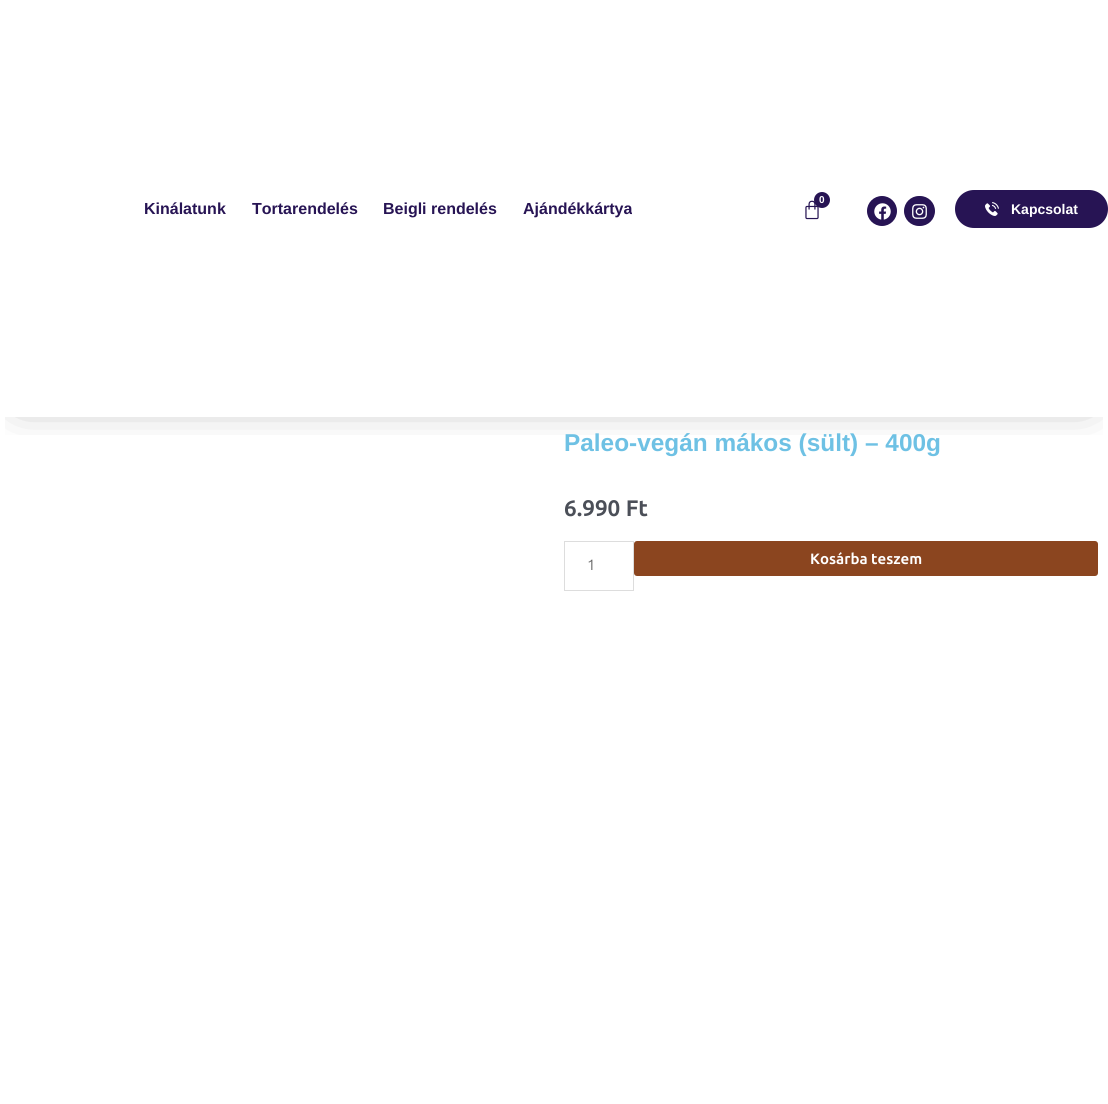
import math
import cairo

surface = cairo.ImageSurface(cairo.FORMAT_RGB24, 1108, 1104)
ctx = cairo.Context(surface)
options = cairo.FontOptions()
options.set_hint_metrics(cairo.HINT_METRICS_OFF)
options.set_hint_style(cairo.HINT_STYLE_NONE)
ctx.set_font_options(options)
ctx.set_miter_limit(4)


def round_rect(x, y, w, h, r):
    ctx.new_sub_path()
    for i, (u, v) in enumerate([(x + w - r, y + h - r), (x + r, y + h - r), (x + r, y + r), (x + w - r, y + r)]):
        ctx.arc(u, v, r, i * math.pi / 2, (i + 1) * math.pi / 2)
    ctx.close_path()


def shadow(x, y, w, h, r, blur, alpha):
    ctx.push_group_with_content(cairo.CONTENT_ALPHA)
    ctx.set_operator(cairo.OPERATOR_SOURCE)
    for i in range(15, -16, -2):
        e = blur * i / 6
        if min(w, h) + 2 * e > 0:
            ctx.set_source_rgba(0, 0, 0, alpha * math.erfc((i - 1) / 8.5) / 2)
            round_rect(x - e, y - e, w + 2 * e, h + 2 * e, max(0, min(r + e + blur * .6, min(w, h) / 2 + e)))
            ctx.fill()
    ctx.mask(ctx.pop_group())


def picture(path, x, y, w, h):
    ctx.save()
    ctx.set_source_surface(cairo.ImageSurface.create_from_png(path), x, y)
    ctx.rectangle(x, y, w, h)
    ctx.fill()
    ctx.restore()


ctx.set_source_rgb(1, 1, 1)
ctx.paint()
ctx.save()
ctx.rectangle(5, 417, 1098, 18)
ctx.clip()
ctx.set_source_rgb(0, 0, 0)
shadow(21, 21, 1066, 375, 0, 22.5, 0.5)
ctx.restore()
ctx.select_font_face("Liberation Sans", cairo.FONT_SLANT_NORMAL, cairo.FONT_WEIGHT_BOLD)
ctx.set_font_size(16)
ctx.set_source_rgb(0.153, 0.082, 0.329)
ctx.move_to(144, 214)
ctx.show_text("Kinálatunk")
ctx.move_to(252, 214)
ctx.show_text("Tortarendelés")
ctx.move_to(383, 214)
ctx.show_text("Beigli rendelés")
ctx.move_to(523, 214)
ctx.show_text("Ajándékkártya")
picture("img1.png", 805, 200, 14, 20)
ctx.arc(822, 200, 8, 0, 2 * math.pi)
ctx.fill()
ctx.set_font_size(10)
ctx.set_source_rgb(1, 1, 1)
ctx.move_to(819, 203)
ctx.show_text("0")
ctx.set_source_rgb(0.153, 0.082, 0.329)
ctx.new_path()
ctx.arc(882, 211, 15, 0, 2 * math.pi)
ctx.fill()
picture("img2.png", 874, 203, 17, 17)
round_rect(904, 196, 31, 30, 15)
ctx.fill()
picture("img3.png", 912, 204, 15, 15)
round_rect(955, 190, 153, 38, 19)
ctx.fill()
picture("img4.png", 985, 202, 14, 14)
ctx.set_font_size(14)
ctx.set_source_rgb(1, 1, 1)
ctx.move_to(1011, 214)
ctx.show_text("Kapcsolat")
ctx.set_font_size(24.4)
ctx.set_source_rgb(0.431, 0.757, 0.894)
ctx.move_to(564, 451)
ctx.show_text("Paleo-vegán mákos (sült) – 400g")
ctx.select_font_face("Ubuntu", cairo.FONT_SLANT_NORMAL, cairo.FONT_WEIGHT_BOLD)
ctx.set_font_size(22.5)
ctx.set_source_rgb(0.294, 0.31, 0.345)
ctx.move_to(564, 516)
ctx.show_text("6.990 Ft")
ctx.rectangle(564.5, 541.5, 69, 49)
ctx.set_source_rgb(0.867, 0.867, 0.867)
ctx.set_line_width(1)
ctx.stroke()
ctx.select_font_face("Ubuntu")
ctx.set_font_size(15)
ctx.set_source_rgb(0.4, 0.4, 0.4)
ctx.move_to(587, 570)
ctx.show_text("1")
ctx.set_source_rgb(0.545, 0.271, 0.122)
round_rect(634, 541, 464, 35, 3)
ctx.fill()
ctx.select_font_face("Ubuntu", cairo.FONT_SLANT_NORMAL, cairo.FONT_WEIGHT_BOLD)
ctx.set_source_rgb(1, 1, 1)
ctx.move_to(810, 564)
ctx.show_text("Kosárba teszem")
surface.write_to_png("page.png")
